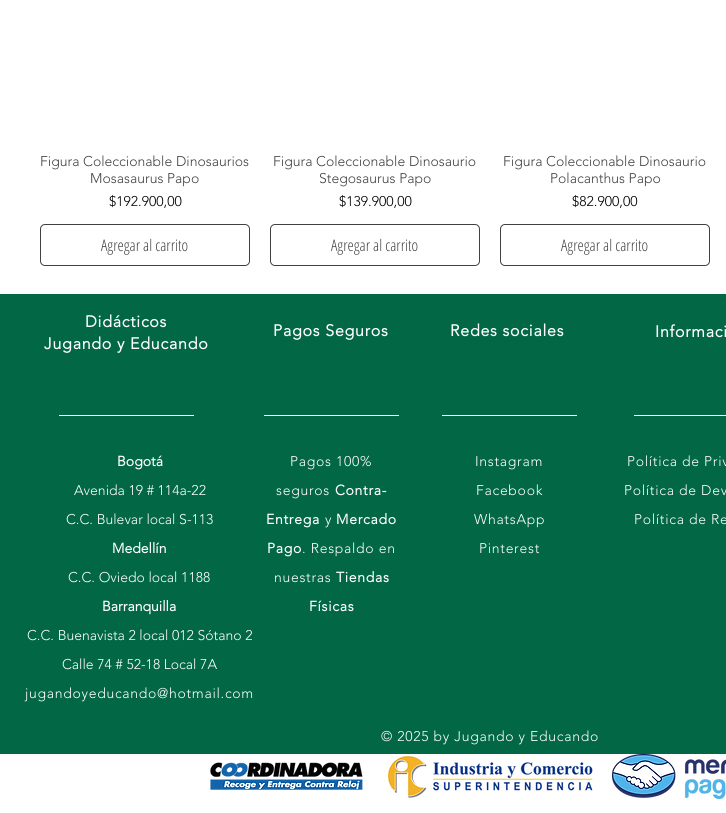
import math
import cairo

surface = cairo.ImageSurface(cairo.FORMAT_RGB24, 726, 813)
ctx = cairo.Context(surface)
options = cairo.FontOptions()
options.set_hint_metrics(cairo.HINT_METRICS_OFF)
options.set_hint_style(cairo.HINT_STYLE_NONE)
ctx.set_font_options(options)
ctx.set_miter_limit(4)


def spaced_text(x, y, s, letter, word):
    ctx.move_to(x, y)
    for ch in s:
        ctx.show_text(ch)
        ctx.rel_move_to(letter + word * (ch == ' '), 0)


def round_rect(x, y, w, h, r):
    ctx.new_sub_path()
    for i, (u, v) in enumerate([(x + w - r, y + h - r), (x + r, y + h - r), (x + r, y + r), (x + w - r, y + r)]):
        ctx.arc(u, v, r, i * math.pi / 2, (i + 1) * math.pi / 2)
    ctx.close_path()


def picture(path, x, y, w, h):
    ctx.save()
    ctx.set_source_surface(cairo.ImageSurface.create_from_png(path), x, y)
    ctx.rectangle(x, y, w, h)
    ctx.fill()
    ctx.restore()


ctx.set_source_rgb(1, 1, 1)
ctx.paint()
ctx.select_font_face("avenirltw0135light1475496 Light")
ctx.set_font_size(14)
ctx.set_source_rgb(0.255, 0.255, 0.255)
ctx.move_to(40, 166)
ctx.show_text("Figura Coleccionable Dinosaurios")
ctx.move_to(90, 183)
ctx.show_text("Mosasaurus Papo")
ctx.set_source_rgb(0, 0, 0)
ctx.move_to(109, 206)
ctx.show_text("$192.900,00")
round_rect(40.5, 224.5, 209, 41, 4.5)
ctx.set_source_rgb(0.255, 0.255, 0.255)
ctx.set_line_width(1)
ctx.stroke()
ctx.select_font_face("Open Sans Condensed Light")
ctx.set_font_size(16)
ctx.move_to(101, 251)
ctx.show_text("Agregar al carrito")
ctx.select_font_face("avenirltw0135light1475496 Light")
ctx.set_font_size(14)
ctx.move_to(273, 166)
ctx.show_text("Figura Coleccionable Dinosaurio")
ctx.move_to(319, 183)
ctx.show_text("Stegosaurus Papo")
ctx.set_source_rgb(0, 0, 0)
ctx.move_to(339, 206)
ctx.show_text("$139.900,00")
round_rect(270.5, 224.5, 209, 41, 4.5)
ctx.set_source_rgb(0.255, 0.255, 0.255)
ctx.stroke()
ctx.select_font_face("Open Sans Condensed Light")
ctx.set_font_size(16)
ctx.move_to(331, 251)
ctx.show_text("Agregar al carrito")
ctx.select_font_face("avenirltw0135light1475496 Light")
ctx.set_font_size(14)
ctx.move_to(503, 166)
ctx.show_text("Figura Coleccionable Dinosaurio")
ctx.move_to(550, 183)
ctx.show_text("Polacanthus Papo")
ctx.set_source_rgb(0, 0, 0)
ctx.move_to(572, 206)
ctx.show_text("$82.900,00")
round_rect(500.5, 224.5, 209, 41, 4.5)
ctx.set_source_rgb(0.255, 0.255, 0.255)
ctx.stroke()
ctx.select_font_face("Open Sans Condensed Light")
ctx.set_font_size(16)
ctx.move_to(561, 251)
ctx.show_text("Agregar al carrito")
ctx.set_source_rgb(0.008, 0.404, 0.271)
ctx.rectangle(0, 294, 726, 460)
ctx.fill()
ctx.select_font_face("avenirltw0135light1475496", cairo.FONT_SLANT_NORMAL, cairo.FONT_WEIGHT_BOLD)
ctx.set_source_rgb(1, 1, 1)
spaced_text(85, 327, "Didácticos", 0.75, 0)
spaced_text(44, 349, "Jugando y Educando", 0.75, 0)
spaced_text(273, 336, "Pagos Seguros", 0.75, 0)
spaced_text(450, 336, "Redes sociales", 0.75, 0)
spaced_text(655, 337, "Informaci", 0.75, 0)
ctx.rectangle(59, 415, 135, 1)
ctx.fill()
ctx.rectangle(264, 415, 135, 1)
ctx.fill()
ctx.rectangle(442, 415, 135, 1)
ctx.fill()
ctx.rectangle(634, 415, 92, 1)
ctx.fill()
ctx.set_font_size(14)
ctx.move_to(117, 466)
ctx.show_text("Bogotá")
ctx.select_font_face("avenirltw0135light1475496 Light")
ctx.move_to(74, 495)
ctx.show_text("Avenida 19 # 114a-22")
ctx.move_to(66, 524)
ctx.show_text("C.C. Bulevar local S-113")
ctx.select_font_face("avenirltw0135light1475496", cairo.FONT_SLANT_NORMAL, cairo.FONT_WEIGHT_BOLD)
ctx.move_to(112, 553)
ctx.show_text("Medellín")
ctx.select_font_face("avenirltw0135light1475496 Light")
ctx.move_to(68, 582)
ctx.show_text("C.C. Oviedo local 1188")
ctx.select_font_face("avenirltw0135light1475496", cairo.FONT_SLANT_NORMAL, cairo.FONT_WEIGHT_BOLD)
ctx.move_to(102, 611)
ctx.show_text("Barranquilla")
ctx.select_font_face("avenirltw0135light1475496 Light")
ctx.move_to(27, 640)
ctx.show_text("C.C. Buenavista 2 local 012 Sótano 2")
ctx.move_to(62, 669)
ctx.show_text("Calle 74 # 52-18 Local 7A")
spaced_text(25, 698, "jugandoyeducando@hotmail.com", 0.7, 0)
spaced_text(290, 466, "Pagos 100%", 0.7, 0)
spaced_text(276, 495, "seguros", 0.7, 0)
ctx.select_font_face("avenirltw0135light1475496", cairo.FONT_SLANT_NORMAL, cairo.FONT_WEIGHT_BOLD)
spaced_text(335, 495, "Contra-", 0.7, 0)
spaced_text(266, 524, "Entrega", 0.7, 0)
ctx.select_font_face("avenirltw0135light1475496 Light")
spaced_text(325, 524, "y", 0.7, 0)
ctx.select_font_face("avenirltw0135light1475496", cairo.FONT_SLANT_NORMAL, cairo.FONT_WEIGHT_BOLD)
spaced_text(336, 524, "Mercado", 0.7, 0)
spaced_text(267, 553, "Pago", 0.7, 0)
ctx.select_font_face("avenirltw0135light1475496 Light")
spaced_text(302, 553, ". Respaldo en", 0.7, 0)
spaced_text(274, 582, "nuestras", 0.7, 0)
ctx.select_font_face("avenirltw0135light1475496", cairo.FONT_SLANT_NORMAL, cairo.FONT_WEIGHT_BOLD)
spaced_text(336, 582, "Tiendas", 0.7, 0)
spaced_text(309, 611, "Físicas", 0.7, 0)
ctx.select_font_face("avenirltw0135light1475496 Light")
spaced_text(475, 466, "Instagram", 0.7, 0)
spaced_text(476, 495, "Facebook", 0.7, 0)
spaced_text(474, 524, "WhatsApp", 0.7, 0)
spaced_text(479, 553, "Pinterest", 0.7, 0)
spaced_text(627, 466, "Política de Priv", 0.7, 0)
spaced_text(624, 495, "Política de Dev", 0.7, 0)
spaced_text(634, 524, "Política de Re", 0.7, 0)
spaced_text(381, 741, "© 2025 by Jugando y Educando", 0.7, 0)
picture("img1.png", 210, 762, 153, 28)
picture("img2.png", 387, 756, 206, 42)
picture("img3.png", 612, 754, 114, 45)
surface.write_to_png("page.png")
